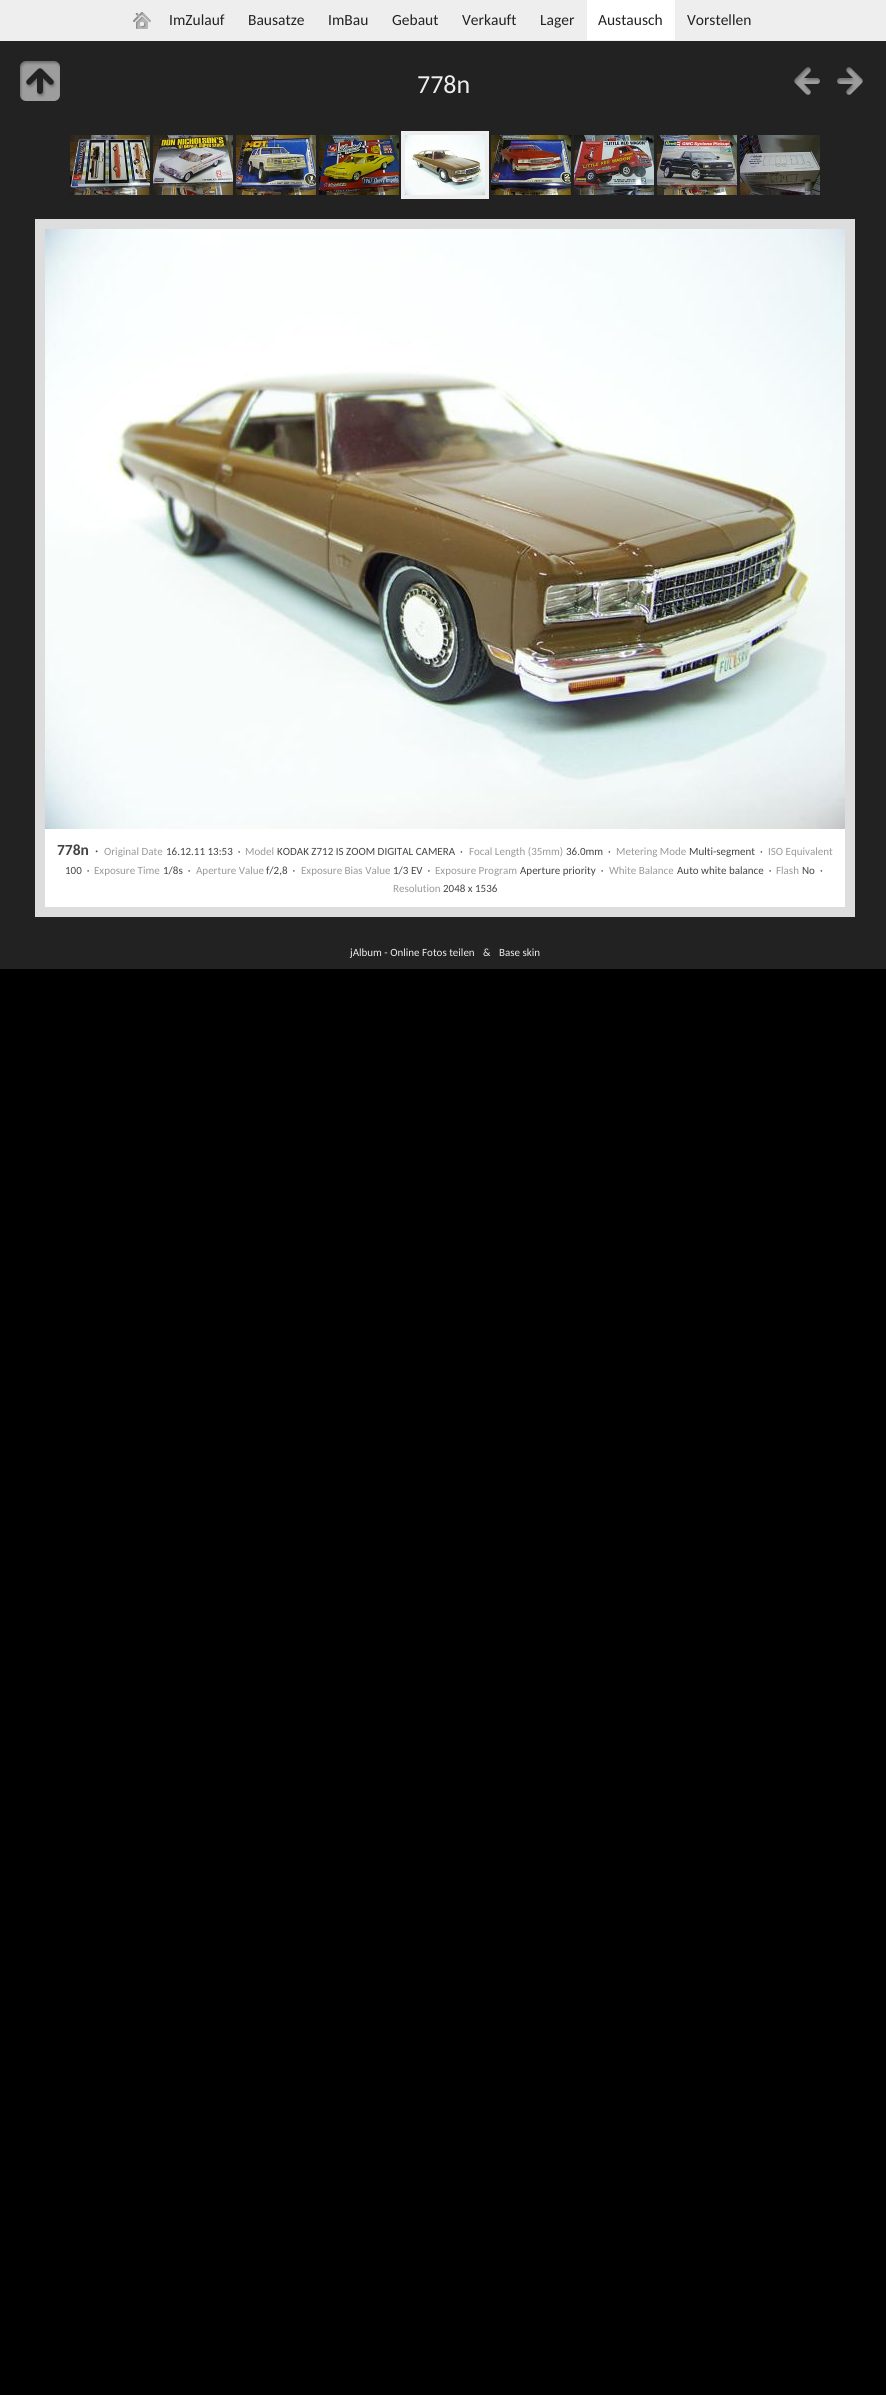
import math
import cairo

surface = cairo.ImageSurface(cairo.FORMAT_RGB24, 886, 2395)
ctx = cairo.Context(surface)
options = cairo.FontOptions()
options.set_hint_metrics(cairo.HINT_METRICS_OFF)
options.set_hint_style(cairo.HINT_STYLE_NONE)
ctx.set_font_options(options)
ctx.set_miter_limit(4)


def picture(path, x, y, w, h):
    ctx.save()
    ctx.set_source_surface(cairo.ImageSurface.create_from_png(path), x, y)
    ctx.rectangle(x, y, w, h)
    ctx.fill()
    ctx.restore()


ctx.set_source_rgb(0, 0, 0)
ctx.paint()
ctx.set_source_rgb(0.133, 0.133, 0.133)
ctx.rectangle(0, 41, 886, 928)
ctx.fill()
ctx.set_source_rgb(0.933, 0.933, 0.933)
ctx.rectangle(0, 0, 886, 41)
ctx.fill()
picture("img1.png", 133, 12, 18, 17)
ctx.select_font_face("Carlito")
ctx.set_font_size(15.5)
ctx.set_source_rgb(0.133, 0.133, 0.133)
ctx.move_to(169, 25)
ctx.show_text("ImZulauf")
ctx.move_to(248, 25)
ctx.show_text("Bausatze")
ctx.move_to(328, 25)
ctx.show_text("ImBau")
ctx.move_to(392, 25)
ctx.show_text("Gebaut")
ctx.move_to(462, 25)
ctx.show_text("Verkauft")
ctx.move_to(540, 25)
ctx.show_text("Lager")
ctx.set_source_rgb(1, 1, 1)
ctx.rectangle(587, 0, 88, 40)
ctx.fill()
ctx.set_source_rgb(0.133, 0.133, 0.133)
ctx.move_to(598, 25)
ctx.show_text("Austausch")
ctx.move_to(687, 25)
ctx.show_text("Vorstellen")
picture("img2.png", 20, 61, 40, 40)
ctx.set_font_size(26)
ctx.set_source_rgb(0.933, 0.933, 0.933)
ctx.move_to(417, 93)
ctx.show_text("778n")
picture("img3.png", 794, 67, 26, 28)
picture("img4.png", 837, 67, 26, 28)
picture("img5.png", 70, 135, 80, 60)
picture("img6.png", 153, 135, 80, 60)
picture("img7.png", 236, 135, 80, 60)
picture("img8.png", 319, 135, 80, 60)
ctx.rectangle(403, 133, 84, 64)
ctx.set_line_width(4)
ctx.stroke()
picture("img9.png", 405, 135, 80, 60)
picture("img10.png", 491, 135, 80, 60)
picture("img11.png", 574, 135, 80, 60)
picture("img12.png", 657, 135, 80, 60)
picture("img13.png", 740, 135, 80, 60)
ctx.set_source_rgb(0.867, 0.867, 0.867)
ctx.rectangle(35, 219, 820, 698)
ctx.fill()
picture("img14.png", 45, 229, 800, 600)
ctx.set_source_rgb(1, 1, 1)
ctx.rectangle(45, 829, 800, 78)
ctx.fill()
ctx.select_font_face("Carlito", cairo.FONT_SLANT_NORMAL, cairo.FONT_WEIGHT_BOLD)
ctx.set_font_size(15.5)
ctx.set_source_rgb(0.267, 0.267, 0.267)
ctx.move_to(57, 855)
ctx.show_text("778n")
ctx.select_font_face("Carlito")
ctx.set_font_size(13)
ctx.move_to(95, 855)
ctx.show_text("·")
ctx.set_font_size(11)
ctx.set_source_rgb(0.6, 0.6, 0.6)
ctx.move_to(104, 855)
ctx.show_text("Original Date")
ctx.set_source_rgb(0.267, 0.267, 0.267)
ctx.move_to(166, 855)
ctx.show_text("16.12.11 13:53  ·")
ctx.set_source_rgb(0.6, 0.6, 0.6)
ctx.move_to(245, 855)
ctx.show_text("Model")
ctx.set_source_rgb(0.267, 0.267, 0.267)
ctx.move_to(277, 855)
ctx.show_text("KODAK Z712 IS ZOOM DIGITAL CAMERA  ·")
ctx.set_source_rgb(0.6, 0.6, 0.6)
ctx.move_to(469, 855)
ctx.show_text("Focal Length (35mm)")
ctx.set_source_rgb(0.267, 0.267, 0.267)
ctx.move_to(566, 855)
ctx.show_text("36.0mm  ·")
ctx.set_source_rgb(0.6, 0.6, 0.6)
ctx.move_to(616, 855)
ctx.show_text("Metering Mode")
ctx.set_source_rgb(0.267, 0.267, 0.267)
ctx.move_to(689, 855)
ctx.show_text("Multi-segment  ·")
ctx.set_source_rgb(0.6, 0.6, 0.6)
ctx.move_to(768, 855)
ctx.show_text("ISO Equivalent")
ctx.set_source_rgb(0.267, 0.267, 0.267)
ctx.move_to(65, 874)
ctx.show_text("100  ·")
ctx.set_source_rgb(0.6, 0.6, 0.6)
ctx.move_to(94, 874)
ctx.show_text("Exposure Time")
ctx.set_source_rgb(0.267, 0.267, 0.267)
ctx.move_to(163, 874)
ctx.show_text("1/8s  ·")
ctx.set_source_rgb(0.6, 0.6, 0.6)
ctx.move_to(196, 874)
ctx.show_text("Aperture Value")
ctx.set_source_rgb(0.267, 0.267, 0.267)
ctx.move_to(266, 874)
ctx.show_text("f/2,8  ·")
ctx.set_source_rgb(0.6, 0.6, 0.6)
ctx.move_to(301, 874)
ctx.show_text("Exposure Bias Value")
ctx.set_source_rgb(0.267, 0.267, 0.267)
ctx.move_to(393, 874)
ctx.show_text("1/3 EV  ·")
ctx.set_source_rgb(0.6, 0.6, 0.6)
ctx.move_to(435, 874)
ctx.show_text("Exposure Program")
ctx.set_source_rgb(0.267, 0.267, 0.267)
ctx.move_to(520, 874)
ctx.show_text("Aperture priority  ·")
ctx.set_source_rgb(0.6, 0.6, 0.6)
ctx.move_to(609, 874)
ctx.show_text("White Balance")
ctx.set_source_rgb(0.267, 0.267, 0.267)
ctx.move_to(677, 874)
ctx.show_text("Auto white balance  ·")
ctx.set_source_rgb(0.6, 0.6, 0.6)
ctx.move_to(776, 874)
ctx.show_text("Flash")
ctx.set_source_rgb(0.267, 0.267, 0.267)
ctx.move_to(802, 874)
ctx.show_text("No  ·")
ctx.set_source_rgb(0.6, 0.6, 0.6)
ctx.move_to(393, 892)
ctx.show_text("Resolution")
ctx.set_source_rgb(0.267, 0.267, 0.267)
ctx.move_to(443, 892)
ctx.show_text("2048 x 1536")
ctx.set_source_rgb(0.933, 0.933, 0.933)
ctx.move_to(350, 956)
ctx.show_text("jAlbum - Online Fotos teilen")
ctx.move_to(483, 956)
ctx.show_text("&")
ctx.move_to(499, 956)
ctx.show_text("Base skin")
surface.write_to_png("page.png")
